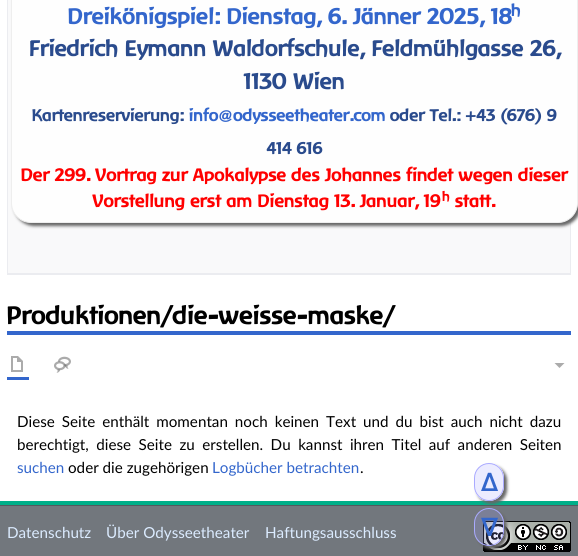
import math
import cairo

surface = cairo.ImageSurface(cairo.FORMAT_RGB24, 578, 556)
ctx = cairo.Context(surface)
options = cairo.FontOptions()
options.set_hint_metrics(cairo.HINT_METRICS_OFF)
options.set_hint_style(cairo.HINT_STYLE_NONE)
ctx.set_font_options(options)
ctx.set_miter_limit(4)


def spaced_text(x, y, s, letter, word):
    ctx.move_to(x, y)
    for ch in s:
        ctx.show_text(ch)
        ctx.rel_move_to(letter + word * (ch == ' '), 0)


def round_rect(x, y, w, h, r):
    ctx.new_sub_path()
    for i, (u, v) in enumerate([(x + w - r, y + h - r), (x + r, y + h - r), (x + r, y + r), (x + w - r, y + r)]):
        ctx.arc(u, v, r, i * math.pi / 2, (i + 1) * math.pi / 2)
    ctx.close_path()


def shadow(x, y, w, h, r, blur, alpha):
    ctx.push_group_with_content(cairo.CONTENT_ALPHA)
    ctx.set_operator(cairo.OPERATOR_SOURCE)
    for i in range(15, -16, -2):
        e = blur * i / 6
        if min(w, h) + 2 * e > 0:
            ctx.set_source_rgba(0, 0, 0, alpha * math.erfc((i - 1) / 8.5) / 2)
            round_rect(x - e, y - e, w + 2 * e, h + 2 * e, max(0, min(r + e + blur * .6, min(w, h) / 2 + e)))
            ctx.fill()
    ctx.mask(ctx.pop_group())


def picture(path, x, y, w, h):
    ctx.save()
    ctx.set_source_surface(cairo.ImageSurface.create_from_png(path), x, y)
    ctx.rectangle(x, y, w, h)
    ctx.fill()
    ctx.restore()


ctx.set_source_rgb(0.447, 0.467, 0.49)
ctx.paint()
ctx.set_source_rgb(0, 0.686, 0.537)
ctx.rectangle(0, 501, 578, 4)
ctx.fill()
ctx.set_source_rgb(1, 1, 1)
ctx.rectangle(0, 0, 578, 501)
ctx.fill()
ctx.set_source_rgb(0.973, 0.976, 0.98)
ctx.rectangle(8, 0, 562, 273)
ctx.fill()
ctx.set_source_rgb(0.918, 0.925, 0.941)
ctx.rectangle(570, 218, 1, 57)
ctx.fill()
ctx.rectangle(7, 273, 564, 2)
ctx.fill()
ctx.rectangle(7, 0, 1, 275)
ctx.fill()
ctx.set_source_rgb(0.4, 0.4, 0.4)
shadow(14, -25, 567, 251, 20, 1.5, 1)
ctx.set_source_rgb(0.996, 0.996, 0.996)
round_rect(11.5, -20.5, 566, 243, 19.5)
ctx.fill_preserve()
ctx.set_source_rgb(0.933, 0.933, 0.933)
ctx.set_line_width(1)
ctx.stroke()
ctx.select_font_face("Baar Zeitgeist", cairo.FONT_SLANT_NORMAL, cairo.FONT_WEIGHT_BOLD)
ctx.set_font_size(21.7)
ctx.set_source_rgb(0.2, 0.4, 0.8)
ctx.move_to(68, 24)
ctx.show_text("Dreikönigspiel: Dienstag, 6. Jänner 2025, 18")
ctx.set_font_size(16.25)
ctx.move_to(511, 16)
ctx.show_text("h")
ctx.set_font_size(21.7)
ctx.set_source_rgb(0.165, 0.294, 0.553)
ctx.move_to(29, 56)
ctx.show_text("Friedrich Eymann Waldorfschule, Feldmühlgasse 26,")
ctx.move_to(244, 89)
ctx.show_text("1130 Wien")
ctx.set_font_size(16.25)
ctx.move_to(32, 121)
ctx.show_text("Kartenreservierung:")
ctx.set_source_rgb(0.2, 0.4, 0.8)
ctx.move_to(189, 121)
ctx.show_text("info@odysseetheater.com")
ctx.set_source_rgb(0.165, 0.294, 0.553)
ctx.move_to(390, 121)
ctx.show_text("oder Tel.: +43 (676) 9")
ctx.move_to(267, 154)
ctx.show_text("414 616")
ctx.set_font_size(17.3)
ctx.set_source_rgb(1, 0, 0)
ctx.move_to(21, 181)
ctx.show_text("Der 299. Vortrag zur Apokalypse des Johannes findet wegen dieser")
ctx.move_to(93, 207)
ctx.show_text("Vorstellung erst am Dienstag 13. Januar, 19")
ctx.set_font_size(13)
ctx.move_to(442, 201)
ctx.show_text("h")
ctx.set_font_size(17.3)
ctx.move_to(455, 207)
ctx.show_text("statt.")
ctx.set_source_rgb(0.329, 0.349, 0.365)
ctx.rectangle(0, 505, 578, 1)
ctx.fill()
ctx.save()
ctx.set_fill_rule(cairo.FILL_RULE_EVEN_ODD)
ctx.new_path()
ctx.move_to(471, 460)
ctx.line_to(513, 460)
ctx.line_to(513, 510)
ctx.line_to(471, 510)
ctx.close_path()
ctx.move_to(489, 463)
ctx.curve_to(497.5, 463, 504, 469.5, 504, 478)
ctx.line_to(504, 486)
ctx.curve_to(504, 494.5, 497.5, 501, 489, 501)
ctx.curve_to(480.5, 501, 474, 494.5, 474, 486)
ctx.line_to(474, 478)
ctx.curve_to(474, 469.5, 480.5, 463, 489, 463)
ctx.close_path()
ctx.clip()
ctx.set_source_rgb(0.4, 0.4, 0.4)
shadow(477, 466, 30, 38, 15, 1.5, 1)
ctx.restore()
ctx.set_source_rgba(0.627, 0.627, 1, 0.2)
round_rect(474.5, 463.5, 29, 37, 14.5)
ctx.fill_preserve()
ctx.set_source_rgb(0.667, 0.667, 1)
ctx.stroke()
ctx.select_font_face("DejaVu Sans", cairo.FONT_SLANT_NORMAL, cairo.FONT_WEIGHT_BOLD)
ctx.set_font_size(24)
ctx.set_source_rgb(0.2, 0.4, 0.8)
ctx.move_to(481, 491)
ctx.show_text("ᐃ")
picture("img3.png", 483, 521, 88, 31)
ctx.save()
ctx.set_fill_rule(cairo.FILL_RULE_EVEN_ODD)
ctx.new_path()
ctx.move_to(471, 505)
ctx.line_to(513, 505)
ctx.line_to(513, 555)
ctx.line_to(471, 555)
ctx.close_path()
ctx.move_to(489, 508)
ctx.curve_to(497.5, 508, 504, 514.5, 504, 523)
ctx.line_to(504, 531)
ctx.curve_to(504, 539.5, 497.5, 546, 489, 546)
ctx.curve_to(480.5, 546, 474, 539.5, 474, 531)
ctx.line_to(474, 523)
ctx.curve_to(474, 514.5, 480.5, 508, 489, 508)
ctx.close_path()
ctx.clip()
ctx.set_source_rgb(0.4, 0.4, 0.4)
shadow(477, 511, 30, 38, 15, 1.5, 1)
ctx.restore()
ctx.set_source_rgba(0.627, 0.627, 1, 0.2)
round_rect(474.5, 508.5, 29, 37, 14.5)
ctx.fill_preserve()
ctx.set_source_rgb(0.667, 0.667, 1)
ctx.stroke()
ctx.set_source_rgb(0.2, 0.4, 0.8)
ctx.move_to(481, 536)
ctx.show_text("ᐁ")
ctx.rectangle(7, 331, 564, 4)
ctx.fill()
ctx.select_font_face("Baar Zeitgeist", cairo.FONT_SLANT_NORMAL, cairo.FONT_WEIGHT_BOLD)
ctx.set_font_size(24.3)
ctx.set_source_rgb(0, 0, 0)
ctx.move_to(7, 324)
ctx.show_text("Produktionen/die-weisse-maske/")
ctx.set_source_rgb(0.2, 0.4, 0.8)
ctx.rectangle(7, 377, 22, 3)
ctx.fill()
picture("img1.png", 11, 356, 12, 16)
picture("img2.png", 54, 356, 17, 17)
ctx.set_source_rgb(0.671, 0.671, 0.671)
ctx.new_path()
ctx.move_to(564.5, 363)
ctx.line_to(559.5, 368)
ctx.line_to(554.5, 363)
ctx.close_path()
ctx.fill()
ctx.select_font_face("Lato")
ctx.set_font_size(15.2)
ctx.set_source_rgb(0, 0, 0)
spaced_text(17, 427, "Diese Seite enthält momentan noch keinen Text und du bist auch nicht dazu", 0, 3.1)
spaced_text(17, 450, "berechtigt, diese Seite zu erstellen. Du kannst ihren Titel auf anderen Seiten", 0, 3.6)
ctx.set_source_rgb(0.2, 0.4, 0.8)
ctx.move_to(17, 473)
ctx.show_text("suchen")
ctx.set_source_rgb(0, 0, 0)
ctx.move_to(68, 473)
ctx.show_text("oder die zugehörigen")
ctx.set_source_rgb(0.2, 0.4, 0.8)
ctx.move_to(212, 473)
ctx.show_text("Logbücher betrachten")
ctx.set_source_rgb(0, 0, 0)
ctx.move_to(360, 473)
ctx.show_text(".")
ctx.set_source_rgb(0.859, 0.918, 1)
ctx.move_to(7, 538)
ctx.show_text("Datenschutz")
ctx.move_to(106, 538)
ctx.show_text("Über Odysseetheater")
ctx.move_to(265, 538)
ctx.show_text("Haftungsausschluss")
surface.write_to_png("page.png")
